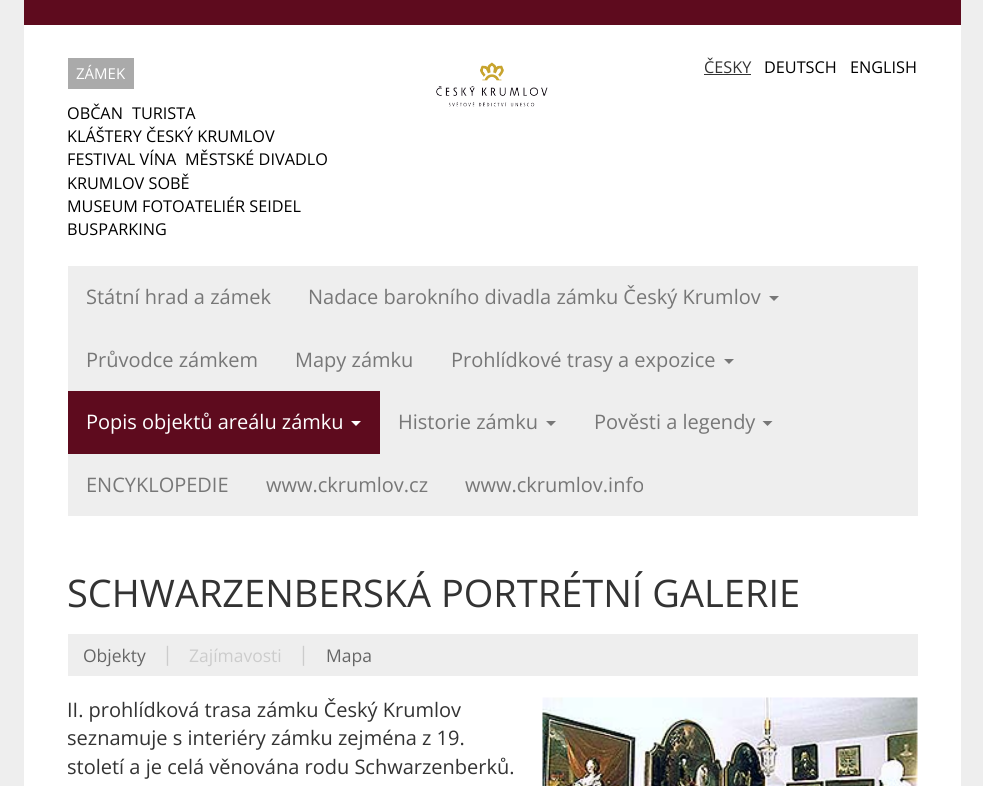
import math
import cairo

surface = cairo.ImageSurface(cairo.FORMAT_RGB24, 983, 786)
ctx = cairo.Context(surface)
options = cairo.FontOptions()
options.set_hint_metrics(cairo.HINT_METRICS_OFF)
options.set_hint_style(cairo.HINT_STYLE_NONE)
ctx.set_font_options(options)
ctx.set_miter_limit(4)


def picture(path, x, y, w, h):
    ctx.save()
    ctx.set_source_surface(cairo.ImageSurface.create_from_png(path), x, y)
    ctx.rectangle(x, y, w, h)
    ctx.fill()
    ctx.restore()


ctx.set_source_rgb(0.933, 0.933, 0.933)
ctx.paint()
ctx.set_source_rgb(1, 1, 1)
ctx.rectangle(24, 25, 937, 761)
ctx.fill()
ctx.set_source_rgb(0.369, 0.043, 0.118)
ctx.rectangle(24, 0, 937, 25)
ctx.fill()
ctx.set_source_rgb(0.667, 0.667, 0.667)
ctx.rectangle(68, 58, 66, 31)
ctx.fill()
ctx.select_font_face("Open Sans")
ctx.set_font_size(15)
ctx.set_source_rgb(1, 1, 1)
ctx.move_to(76, 79)
ctx.show_text("ZÁMEK")
ctx.set_font_size(16.25)
ctx.set_source_rgb(0, 0, 0)
ctx.move_to(67, 119)
ctx.show_text("OBČAN")
ctx.move_to(132, 119)
ctx.show_text("TURISTA")
ctx.move_to(67, 142)
ctx.show_text("KLÁŠTERY ČESKÝ KRUMLOV")
ctx.move_to(67, 165)
ctx.show_text("FESTIVAL VÍNA")
ctx.move_to(185, 165)
ctx.show_text("MĚSTSKÉ DIVADLO")
ctx.move_to(67, 189)
ctx.show_text("KRUMLOV SOBĚ")
ctx.move_to(67, 212)
ctx.show_text("MUSEUM FOTOATELIÉR SEIDEL")
ctx.move_to(67, 235)
ctx.show_text("BUSPARKING")
picture("img1.png", 436, 62, 112, 45)
ctx.set_source_rgb(0.2, 0.2, 0.2)
ctx.move_to(704, 73)
ctx.show_text("ČESKY")
ctx.rectangle(704, 74, 47, 1)
ctx.fill()
ctx.set_source_rgb(0, 0, 0)
ctx.move_to(764, 73)
ctx.show_text("DEUTSCH")
ctx.move_to(850, 73)
ctx.show_text("ENGLISH")
ctx.set_source_rgb(0.933, 0.933, 0.933)
ctx.rectangle(68, 266, 850, 250)
ctx.fill()
ctx.set_font_size(20)
ctx.set_source_rgb(0.467, 0.467, 0.467)
ctx.move_to(86, 304)
ctx.show_text("Státní hrad a zámek")
ctx.move_to(308, 304)
ctx.show_text("Nadace barokního divadla zámku Český Krumlov")
ctx.new_path()
ctx.move_to(769, 296)
ctx.line_to(779, 296)
ctx.line_to(774, 301)
ctx.close_path()
ctx.fill()
ctx.move_to(86, 367)
ctx.show_text("Průvodce zámkem")
ctx.move_to(295, 367)
ctx.show_text("Mapy zámku")
ctx.move_to(451, 367)
ctx.show_text("Prohlídkové trasy a expozice")
ctx.new_path()
ctx.move_to(724, 359)
ctx.line_to(734, 359)
ctx.line_to(729, 364)
ctx.close_path()
ctx.fill()
ctx.set_source_rgb(0.369, 0.043, 0.118)
ctx.rectangle(68, 391, 312, 63)
ctx.fill()
ctx.set_source_rgb(1, 1, 1)
ctx.move_to(86, 429)
ctx.show_text("Popis objektů areálu zámku")
ctx.new_path()
ctx.move_to(351, 421)
ctx.line_to(361, 421)
ctx.line_to(356, 426)
ctx.close_path()
ctx.fill()
ctx.set_source_rgb(0.467, 0.467, 0.467)
ctx.move_to(398, 429)
ctx.show_text("Historie zámku")
ctx.new_path()
ctx.move_to(546, 421)
ctx.line_to(556, 421)
ctx.line_to(551, 426)
ctx.close_path()
ctx.fill()
ctx.move_to(594, 429)
ctx.show_text("Pověsti a legendy")
ctx.new_path()
ctx.move_to(762.5, 421)
ctx.line_to(772.5, 421)
ctx.line_to(767.5, 426)
ctx.close_path()
ctx.fill()
ctx.move_to(86, 492)
ctx.show_text("ENCYKLOPEDIE")
ctx.move_to(266, 492)
ctx.show_text("www.ckrumlov.cz")
ctx.move_to(465, 492)
ctx.show_text("www.ckrumlov.info")
ctx.set_font_size(38)
ctx.set_source_rgb(0.2, 0.2, 0.2)
ctx.move_to(67, 607)
ctx.show_text("SCHWARZENBERSKÁ PORTRÉTNÍ GALERIE")
ctx.set_source_rgb(0.933, 0.933, 0.933)
ctx.rectangle(68, 634, 850, 42)
ctx.fill()
ctx.set_font_size(17.5)
ctx.set_source_rgb(0.4, 0.4, 0.4)
ctx.move_to(83, 662)
ctx.show_text("Objekty")
ctx.set_font_size(20)
ctx.set_source_rgb(0.8, 0.8, 0.8)
ctx.move_to(162, 661)
ctx.show_text("|")
ctx.set_font_size(17.5)
ctx.move_to(189, 662)
ctx.show_text("Zajímavosti")
ctx.set_font_size(20)
ctx.move_to(298, 661)
ctx.show_text("|")
ctx.set_font_size(17.5)
ctx.set_source_rgb(0.4, 0.4, 0.4)
ctx.move_to(326, 662)
ctx.show_text("Mapa")
ctx.set_font_size(20)
ctx.set_source_rgb(0.2, 0.2, 0.2)
ctx.move_to(67, 717)
ctx.show_text("II. prohlídková trasa zámku Český Krumlov")
picture("img2.png", 542, 697, 376, 89)
ctx.move_to(67, 745)
ctx.show_text("seznamuje s interiéry zámku zejména z 19.")
ctx.move_to(67, 774)
ctx.show_text("století a je celá věnována rodu Schwarzenberků.")
surface.write_to_png("page.png")
